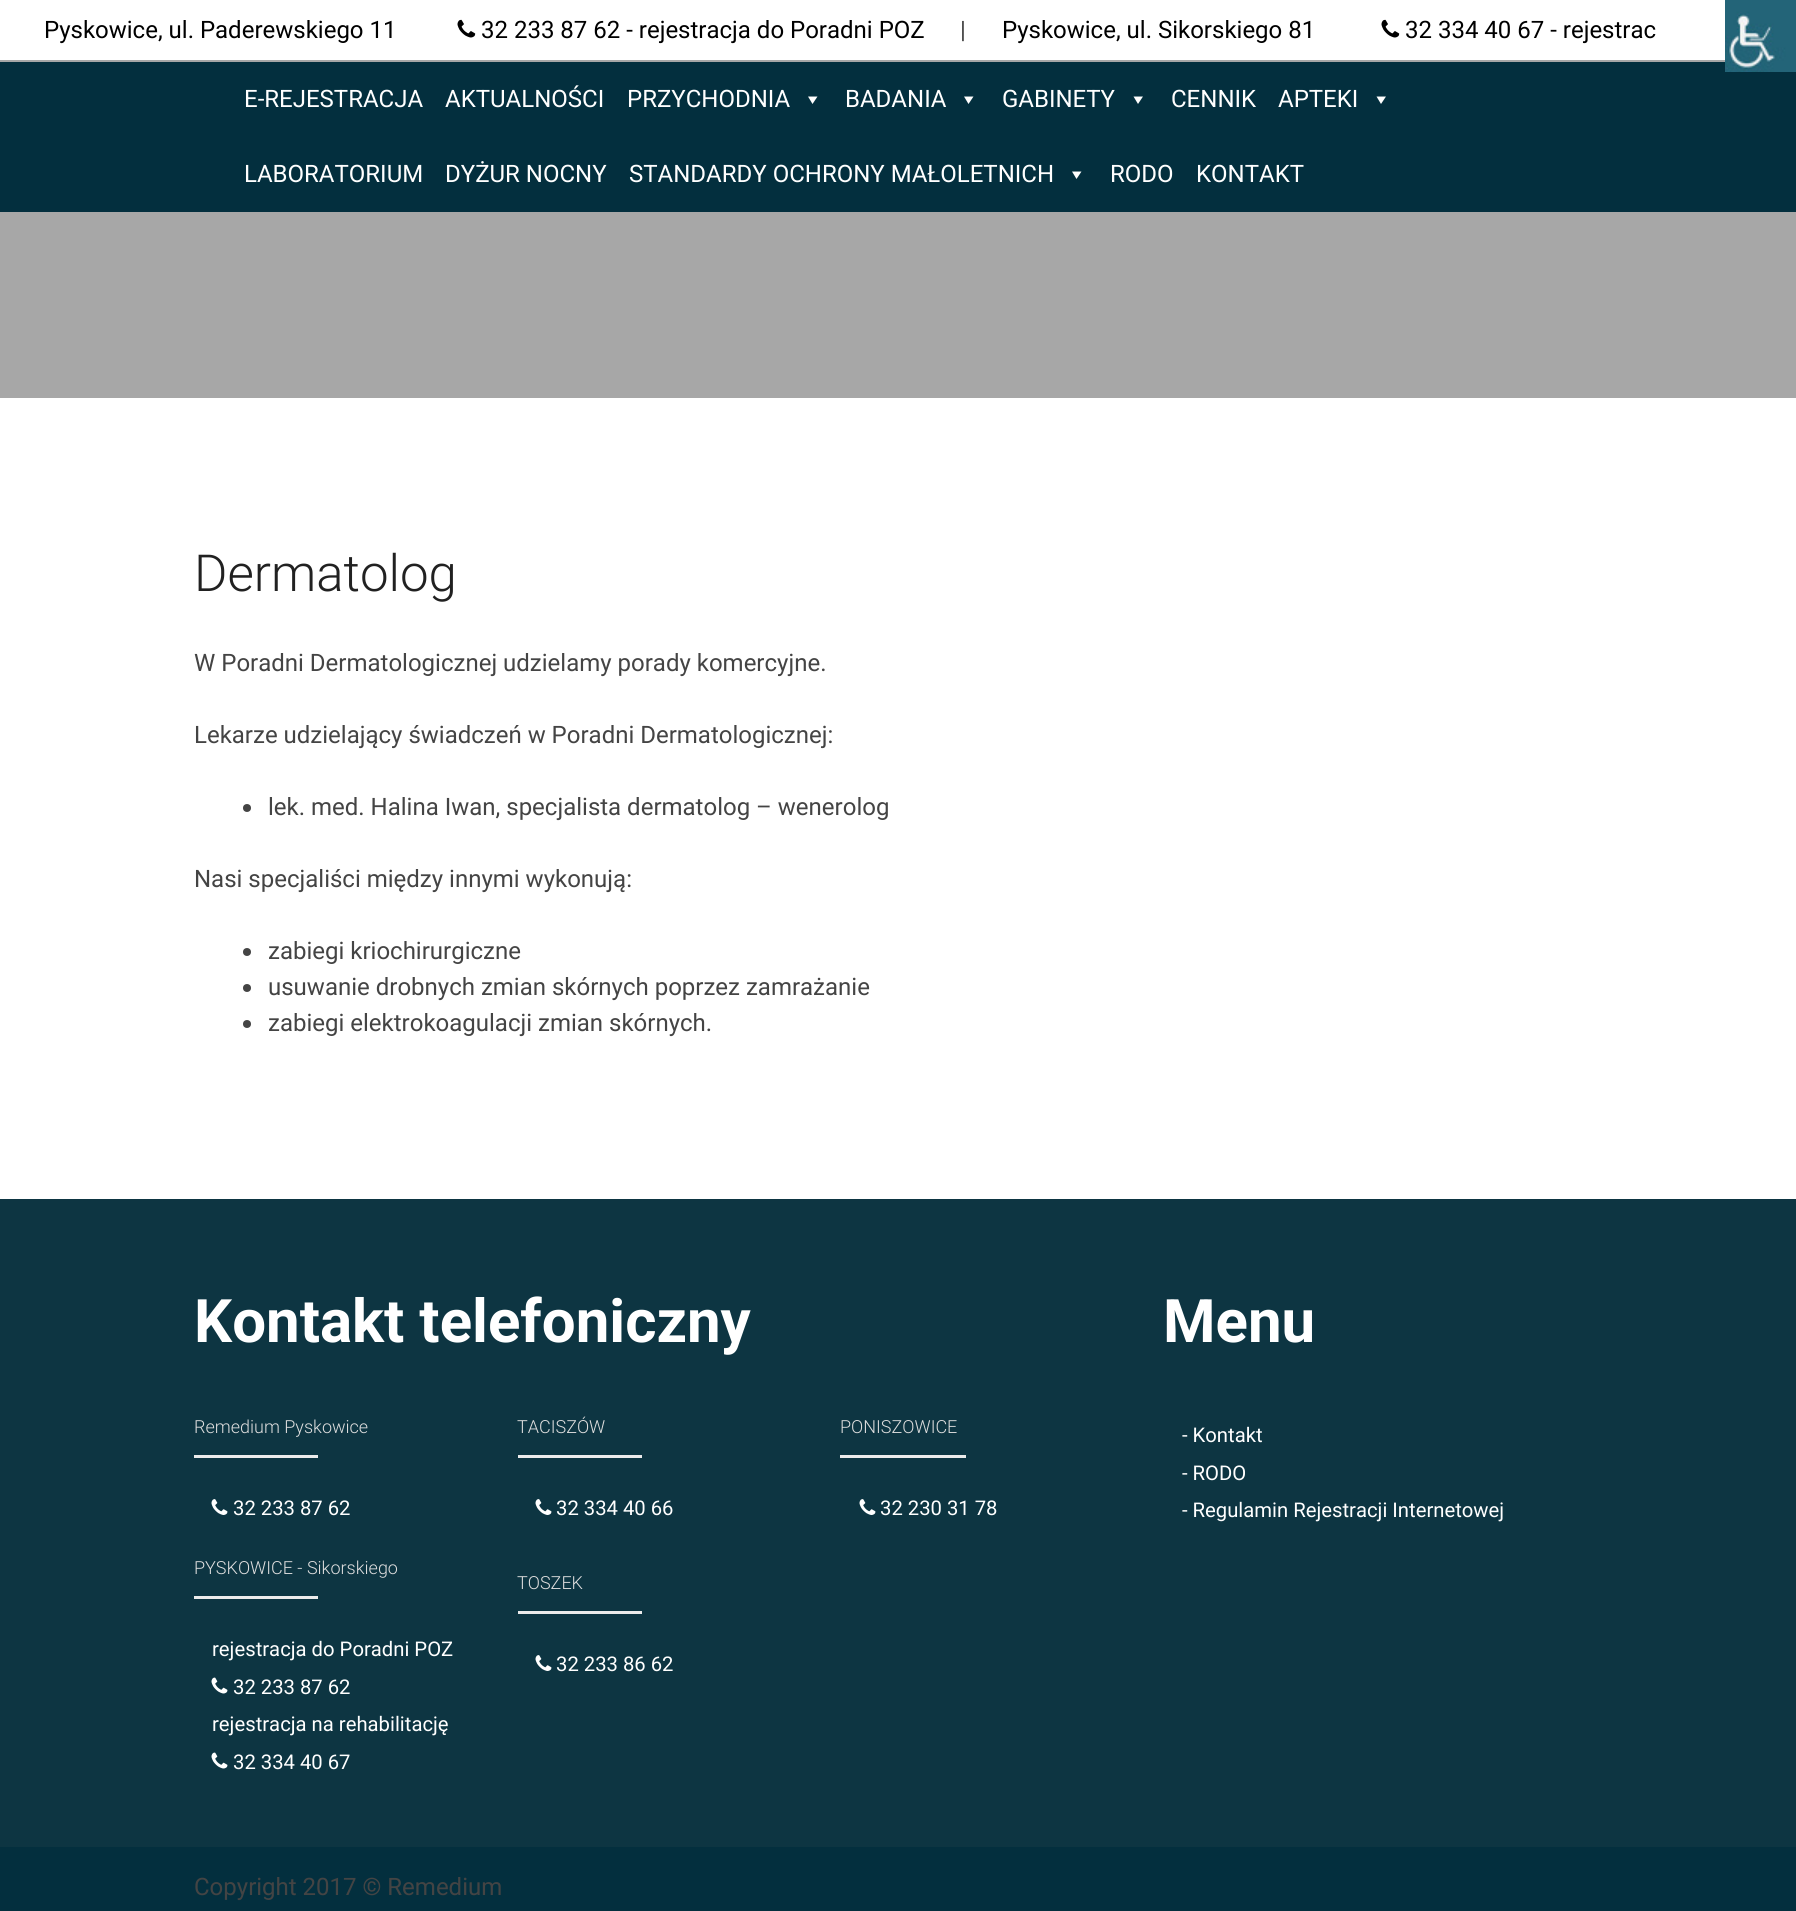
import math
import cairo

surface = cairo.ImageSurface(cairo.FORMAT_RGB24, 1796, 1911)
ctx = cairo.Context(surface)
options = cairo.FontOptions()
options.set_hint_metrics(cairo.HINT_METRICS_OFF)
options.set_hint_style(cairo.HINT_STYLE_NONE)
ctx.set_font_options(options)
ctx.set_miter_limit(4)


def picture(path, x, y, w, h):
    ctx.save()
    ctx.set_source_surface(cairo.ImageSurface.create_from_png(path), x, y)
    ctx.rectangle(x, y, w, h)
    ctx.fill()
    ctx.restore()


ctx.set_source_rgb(1, 1, 1)
ctx.paint()
ctx.select_font_face("Roboto")
ctx.set_font_size(24)
ctx.set_source_rgb(0, 0, 0)
ctx.move_to(44, 38)
ctx.show_text("Pyskowice, ul. Paderewskiego 11")
picture("img1.png", 457, 19, 19, 19)
ctx.move_to(481, 38)
ctx.show_text("32 233 87 62 - rejestracja do Poradni POZ")
ctx.set_source_rgb(0.267, 0.267, 0.267)
ctx.move_to(960, 38)
ctx.show_text("|")
ctx.set_source_rgb(0, 0, 0)
ctx.move_to(1002, 38)
ctx.show_text("Pyskowice, ul. Sikorskiego 81")
picture("img1.png", 1381, 19, 19, 19)
ctx.move_to(1405, 38)
ctx.show_text("32 334 40 67 - rejestrac")
ctx.set_source_rgb(0.655, 0.655, 0.655)
ctx.rectangle(0, 60, 1796, 338)
ctx.fill()
ctx.set_source_rgb(0.012, 0.184, 0.243)
ctx.rectangle(0, 62, 1796, 150)
ctx.fill()
ctx.set_source_rgb(1, 1, 1)
ctx.move_to(244, 107)
ctx.show_text("E-REJESTRACJA")
ctx.move_to(445, 107)
ctx.show_text("AKTUALNOŚCI")
ctx.move_to(627, 107)
ctx.show_text("PRZYCHODNIA")
ctx.new_path()
ctx.move_to(817.5, 96.5)
ctx.line_to(812.5, 104)
ctx.line_to(808, 96.5)
ctx.close_path()
ctx.fill()
ctx.move_to(845, 107)
ctx.show_text("BADANIA")
ctx.new_path()
ctx.move_to(973.5, 96.5)
ctx.line_to(968.5, 104)
ctx.line_to(964, 96.5)
ctx.close_path()
ctx.fill()
ctx.move_to(1002, 107)
ctx.show_text("GABINETY")
ctx.new_path()
ctx.move_to(1143, 96.5)
ctx.line_to(1138, 104)
ctx.line_to(1133.5, 96.5)
ctx.close_path()
ctx.fill()
ctx.move_to(1171, 107)
ctx.show_text("CENNIK")
ctx.move_to(1278, 107)
ctx.show_text("APTEKI")
ctx.new_path()
ctx.move_to(1386, 96.5)
ctx.line_to(1381, 104)
ctx.line_to(1376.5, 96.5)
ctx.close_path()
ctx.fill()
ctx.move_to(244, 182)
ctx.show_text("LABORATORIUM")
ctx.move_to(445, 182)
ctx.show_text("DYŻUR NOCNY")
ctx.move_to(629, 182)
ctx.show_text("STANDARDY OCHRONY MAŁOLETNICH")
ctx.new_path()
ctx.move_to(1081.5, 171.5)
ctx.line_to(1076.5, 179)
ctx.line_to(1072, 171.5)
ctx.close_path()
ctx.fill()
ctx.move_to(1110, 182)
ctx.show_text("RODO")
ctx.move_to(1196, 182)
ctx.show_text("KONTAKT")
ctx.select_font_face("Roboto Light")
ctx.set_font_size(51)
ctx.set_source_rgb(0.129, 0.129, 0.129)
ctx.move_to(194, 591)
ctx.show_text("Dermatolog")
ctx.select_font_face("Roboto")
ctx.set_font_size(24)
ctx.set_source_rgb(0.267, 0.267, 0.267)
ctx.move_to(194, 671)
ctx.show_text("W Poradni Dermatologicznej udzielamy porady komercyjne.")
ctx.move_to(194, 743)
ctx.show_text("Lekarze udzielający świadczeń w Poradni Dermatologicznej:")
ctx.new_path()
ctx.arc(247, 808, 4, 0, 2 * math.pi)
ctx.fill()
ctx.move_to(268, 815)
ctx.show_text("lek. med. Halina Iwan, specjalista dermatolog – wenerolog")
ctx.move_to(194, 887)
ctx.show_text("Nasi specjaliści między innymi wykonują:")
ctx.new_path()
ctx.arc(247, 952, 4, 0, 2 * math.pi)
ctx.fill()
ctx.move_to(268, 959)
ctx.show_text("zabiegi kriochirurgiczne")
ctx.new_path()
ctx.arc(247, 988, 4, 0, 2 * math.pi)
ctx.fill()
ctx.move_to(268, 995)
ctx.show_text("usuwanie drobnych zmian skórnych poprzez zamrażanie")
ctx.new_path()
ctx.arc(247, 1024, 4, 0, 2 * math.pi)
ctx.fill()
ctx.move_to(268, 1031)
ctx.show_text("zabiegi elektrokoagulacji zmian skórnych.")
ctx.set_source_rgb(0.051, 0.208, 0.259)
ctx.rectangle(0, 1199, 1796, 648)
ctx.fill()
ctx.select_font_face("Roboto", cairo.FONT_SLANT_NORMAL, cairo.FONT_WEIGHT_BOLD)
ctx.set_font_size(60)
ctx.set_source_rgb(1, 1, 1)
ctx.move_to(194, 1342)
ctx.show_text("Kontakt telefoniczny")
ctx.select_font_face("Roboto Light")
ctx.set_font_size(18)
ctx.set_source_rgb(0.867, 0.867, 0.867)
ctx.move_to(194, 1433)
ctx.show_text("Remedium Pyskowice")
ctx.set_source_rgb(0.918, 0.918, 0.918)
ctx.rectangle(194, 1455, 124, 3)
ctx.fill()
picture("img2.png", 211, 1499, 17, 16)
ctx.select_font_face("Roboto")
ctx.set_font_size(20.25)
ctx.set_source_rgb(1, 1, 1)
ctx.move_to(233, 1515)
ctx.show_text("32 233 87 62")
ctx.select_font_face("Roboto Light")
ctx.set_font_size(18)
ctx.set_source_rgb(0.867, 0.867, 0.867)
ctx.move_to(194, 1574)
ctx.show_text("PYSKOWICE - Sikorskiego")
ctx.set_source_rgb(0.918, 0.918, 0.918)
ctx.rectangle(194, 1596, 124, 3)
ctx.fill()
ctx.select_font_face("Roboto")
ctx.set_font_size(20.25)
ctx.set_source_rgb(1, 1, 1)
ctx.move_to(212, 1656)
ctx.show_text("rejestracja do Poradni POZ")
picture("img3.png", 211, 1677, 17, 17)
ctx.move_to(233, 1694)
ctx.show_text("32 233 87 62")
ctx.move_to(212, 1731)
ctx.show_text("rejestracja na rehabilitację")
picture("img3.png", 211, 1752, 17, 17)
ctx.move_to(233, 1769)
ctx.show_text("32 334 40 67")
ctx.select_font_face("Roboto Light")
ctx.set_font_size(18)
ctx.set_source_rgb(0.867, 0.867, 0.867)
ctx.move_to(517, 1433)
ctx.show_text("TACISZÓW")
ctx.set_source_rgb(0.918, 0.918, 0.918)
ctx.rectangle(518, 1455, 124, 3)
ctx.fill()
picture("img2.png", 535, 1499, 17, 16)
ctx.select_font_face("Roboto")
ctx.set_font_size(20.25)
ctx.set_source_rgb(1, 1, 1)
ctx.move_to(556, 1515)
ctx.show_text("32 334 40 66")
ctx.select_font_face("Roboto Light")
ctx.set_font_size(18)
ctx.set_source_rgb(0.867, 0.867, 0.867)
ctx.move_to(840, 1433)
ctx.show_text("PONISZOWICE")
ctx.set_source_rgb(0.918, 0.918, 0.918)
ctx.rectangle(840, 1455, 126, 3)
ctx.fill()
picture("img2.png", 859, 1499, 17, 16)
ctx.select_font_face("Roboto")
ctx.set_font_size(20.25)
ctx.set_source_rgb(1, 1, 1)
ctx.move_to(880, 1515)
ctx.show_text("32 230 31 78")
ctx.select_font_face("Roboto Light")
ctx.set_font_size(18)
ctx.set_source_rgb(0.867, 0.867, 0.867)
ctx.move_to(517, 1589)
ctx.show_text("TOSZEK")
ctx.set_source_rgb(0.918, 0.918, 0.918)
ctx.rectangle(518, 1611, 124, 3)
ctx.fill()
picture("img2.png", 535, 1655, 17, 16)
ctx.select_font_face("Roboto")
ctx.set_font_size(20.25)
ctx.set_source_rgb(1, 1, 1)
ctx.move_to(556, 1671)
ctx.show_text("32 233 86 62")
ctx.select_font_face("Roboto", cairo.FONT_SLANT_NORMAL, cairo.FONT_WEIGHT_BOLD)
ctx.set_font_size(60)
ctx.move_to(1163, 1342)
ctx.show_text("Menu")
ctx.select_font_face("Roboto")
ctx.set_font_size(20.25)
ctx.move_to(1182, 1442)
ctx.show_text("- Kontakt")
ctx.move_to(1182, 1480)
ctx.show_text("- RODO")
ctx.move_to(1182, 1517)
ctx.show_text("- Regulamin Rejestracji Internetowej")
ctx.set_source_rgb(0.012, 0.184, 0.243)
ctx.rectangle(0, 1847, 1796, 64)
ctx.fill()
ctx.set_font_size(24)
ctx.set_source_rgb(0.267, 0.267, 0.267)
ctx.move_to(194, 1895)
ctx.show_text("Copyright 2017 © Remedium")
picture("img4.png", 1725, 0, 71, 72)
surface.write_to_png("page.png")
